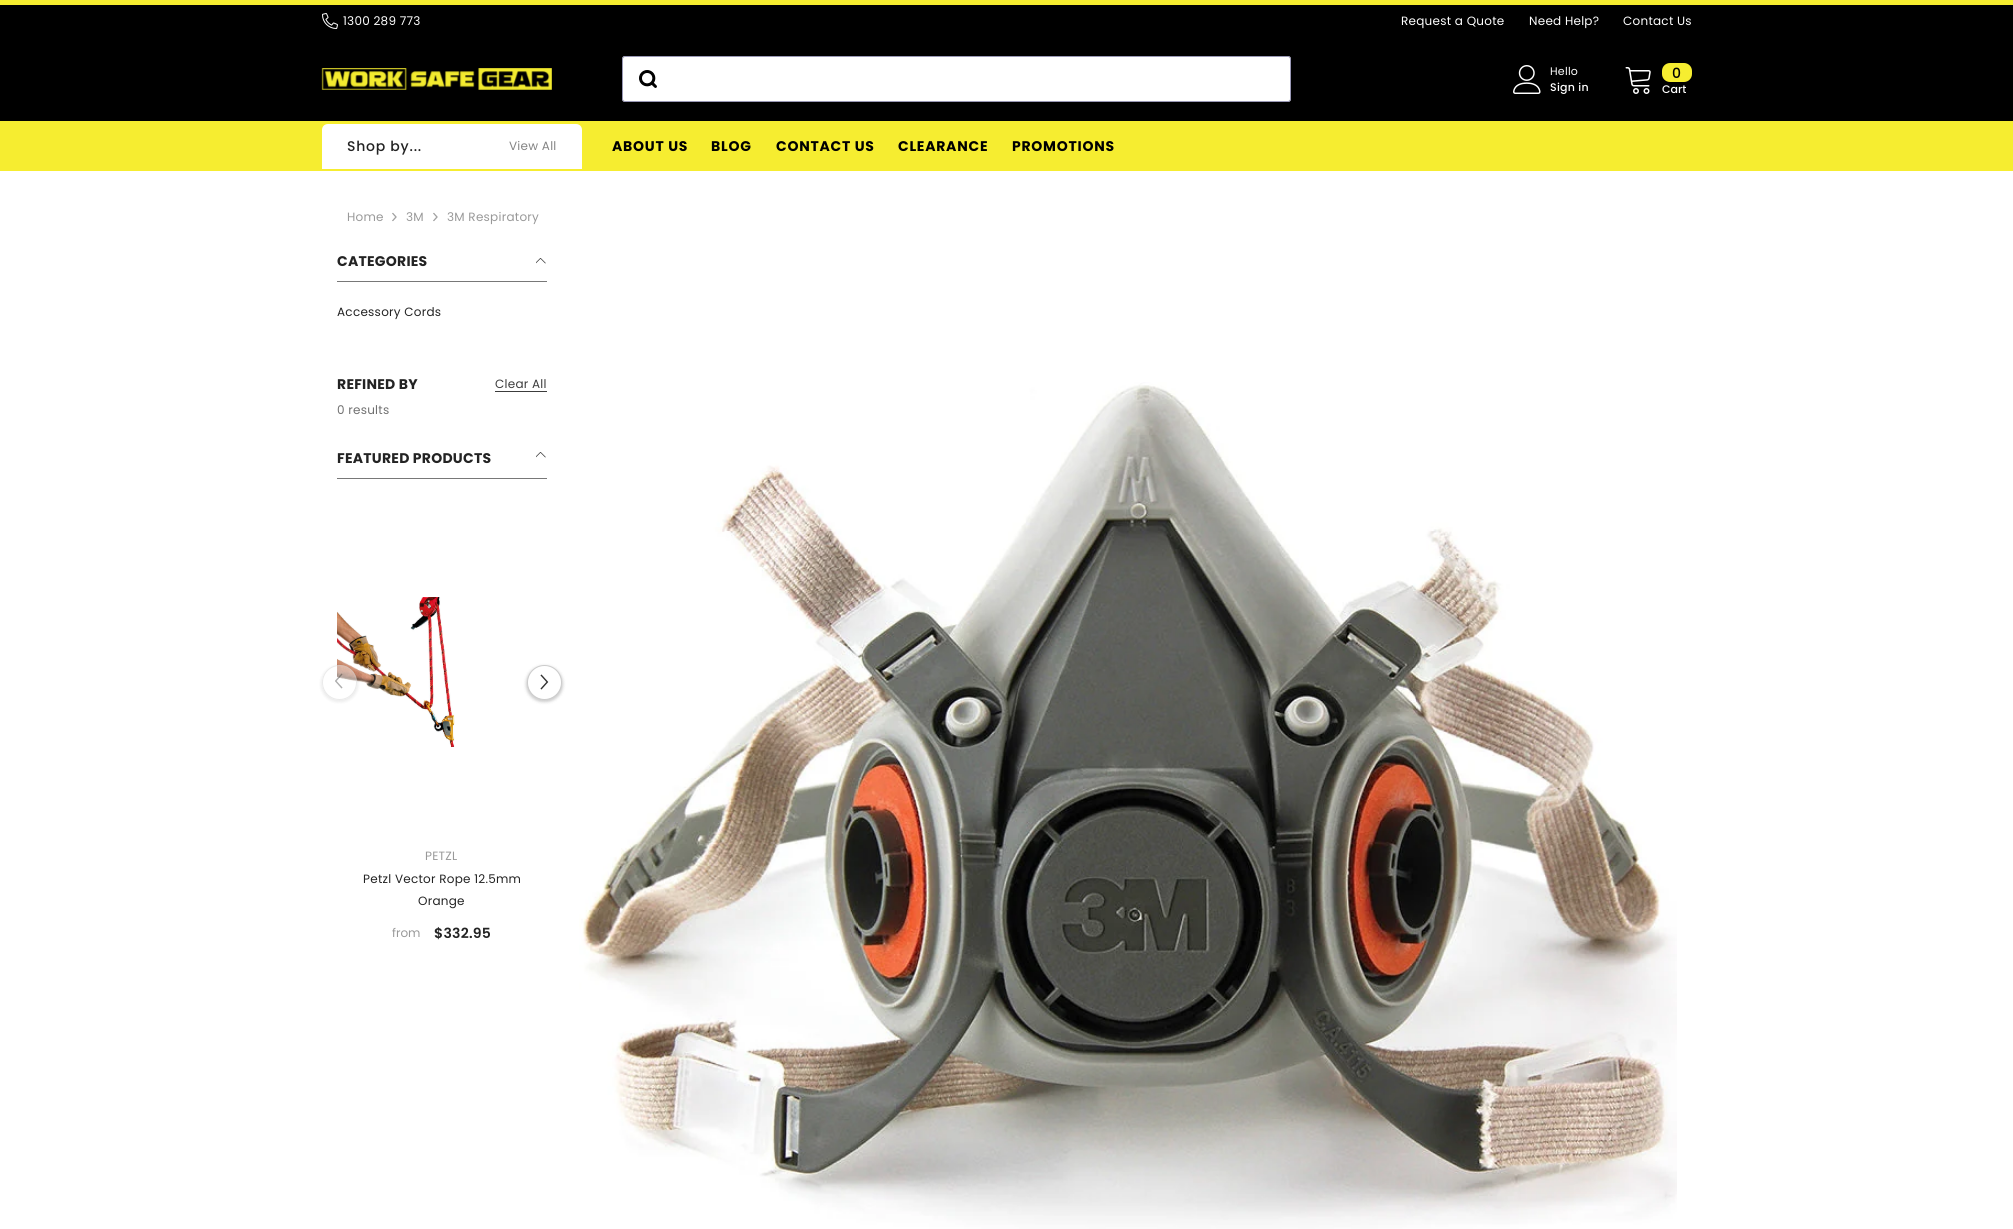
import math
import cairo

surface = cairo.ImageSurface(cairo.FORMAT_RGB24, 2013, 1229)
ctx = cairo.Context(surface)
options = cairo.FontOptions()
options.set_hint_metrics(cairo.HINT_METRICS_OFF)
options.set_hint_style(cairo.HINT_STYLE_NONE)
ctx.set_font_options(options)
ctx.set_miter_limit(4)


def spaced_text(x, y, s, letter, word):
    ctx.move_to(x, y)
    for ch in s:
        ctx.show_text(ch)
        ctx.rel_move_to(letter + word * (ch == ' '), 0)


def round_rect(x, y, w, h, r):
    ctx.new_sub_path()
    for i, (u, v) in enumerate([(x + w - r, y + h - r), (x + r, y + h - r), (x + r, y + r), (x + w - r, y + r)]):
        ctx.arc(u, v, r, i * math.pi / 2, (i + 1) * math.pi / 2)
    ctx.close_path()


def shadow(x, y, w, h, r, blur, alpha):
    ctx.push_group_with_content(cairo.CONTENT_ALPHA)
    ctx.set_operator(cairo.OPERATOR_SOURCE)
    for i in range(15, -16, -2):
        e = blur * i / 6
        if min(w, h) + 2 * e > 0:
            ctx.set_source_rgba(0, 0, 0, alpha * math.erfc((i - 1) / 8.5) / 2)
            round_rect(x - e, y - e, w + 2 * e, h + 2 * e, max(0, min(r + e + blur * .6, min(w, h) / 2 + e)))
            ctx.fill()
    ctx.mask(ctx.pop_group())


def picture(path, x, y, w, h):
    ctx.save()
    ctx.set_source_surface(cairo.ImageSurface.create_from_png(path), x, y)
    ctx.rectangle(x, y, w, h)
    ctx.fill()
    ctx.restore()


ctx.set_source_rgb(1, 1, 1)
ctx.paint()
ctx.set_source_rgb(0.961, 0.929, 0.188)
ctx.rectangle(0, 0, 2013, 5)
ctx.fill()
ctx.set_source_rgb(0, 0, 0)
ctx.rectangle(0, 5, 2013, 116)
ctx.fill()
picture("img1.png", 322, 13, 16, 16)
ctx.select_font_face("Poppins")
ctx.set_font_size(12)
ctx.set_source_rgb(1, 1, 1)
spaced_text(343, 25, "1300 289 773", 0.25, 0)
spaced_text(1401, 25, "Request a Quote", 0.25, 0)
spaced_text(1529, 25, "Need Help?", 0.25, 0)
spaced_text(1623, 25, "Contact Us", 0.25, 0)
picture("img2.png", 321, 68, 231, 22)
round_rect(622, 56, 669, 46, 3)
ctx.fill()
round_rect(622.5, 56.5, 668, 45, 2.5)
ctx.set_source_rgba(0.502, 0.494, 0.639, 0.8)
ctx.set_line_width(1)
ctx.stroke()
picture("img3.png", 639, 70, 18, 18)
picture("img4.png", 1513, 65, 28, 29)
ctx.set_font_size(11)
ctx.set_source_rgb(1, 1, 1)
spaced_text(1550, 75, "Hello", 0.25, 0)
ctx.select_font_face("Poppins Medium")
spaced_text(1550, 91, "Sign in", 0.25, 0)
picture("img5.png", 1625, 67, 26, 27)
ctx.set_source_rgb(0.961, 0.929, 0.188)
round_rect(1662, 63, 30, 19, 8)
ctx.fill()
ctx.set_font_size(14)
ctx.set_source_rgb(0, 0, 0)
ctx.move_to(1672, 78)
ctx.show_text("0")
ctx.set_font_size(11)
ctx.set_source_rgb(1, 1, 1)
ctx.move_to(1662, 93)
ctx.show_text("Cart")
ctx.set_source_rgb(0.961, 0.929, 0.188)
ctx.rectangle(0, 121, 2013, 50)
ctx.fill()
ctx.set_source_rgb(1, 1, 1)
ctx.new_path()
ctx.move_to(328, 124)
ctx.line_to(576, 124)
ctx.curve_to(579.5, 124, 582, 126.5, 582, 130)
ctx.line_to(582, 169)
ctx.line_to(322, 169)
ctx.line_to(322, 130)
ctx.curve_to(322, 126.5, 324.5, 124, 328, 124)
ctx.close_path()
ctx.fill()
ctx.set_font_size(14)
ctx.set_source_rgb(0.137, 0.137, 0.137)
spaced_text(347, 151, "Shop by...", 0.75, 0)
ctx.select_font_face("Poppins")
ctx.set_font_size(12)
ctx.set_source_rgb(0.518, 0.518, 0.518)
spaced_text(509, 150, "View All", 0.25, 0)
ctx.select_font_face("Poppins", cairo.FONT_SLANT_NORMAL, cairo.FONT_WEIGHT_BOLD)
ctx.set_font_size(14)
ctx.set_source_rgb(0, 0, 0)
spaced_text(612, 151, "ABOUT US", 0.75, 0)
spaced_text(711, 151, "BLOG", 0.75, 0)
spaced_text(776, 151, "CONTACT US", 0.75, 0)
spaced_text(898, 151, "CLEARANCE", 0.75, 0)
spaced_text(1012, 151, "PROMOTIONS", 0.75, 0)
ctx.select_font_face("Poppins")
ctx.set_font_size(12)
ctx.set_source_rgb(0.6, 0.6, 0.6)
spaced_text(347, 221, "Home", 0.25, 0)
picture("img6.png", 392, 212, 5, 10)
spaced_text(406, 221, "3M", 0.25, 0)
picture("img6.png", 433, 212, 5, 10)
spaced_text(447, 221, "3M Respiratory", 0.25, 0)
ctx.set_source_rgb(0.471, 0.471, 0.471)
ctx.rectangle(337, 281, 210, 1)
ctx.fill()
ctx.select_font_face("Poppins", cairo.FONT_SLANT_NORMAL, cairo.FONT_WEIGHT_BOLD)
ctx.set_font_size(14)
ctx.set_source_rgb(0.137, 0.137, 0.137)
spaced_text(337, 266, "CATEGORIES", 0.25, 0)
picture("img7.png", 536, 258, 10, 6)
ctx.select_font_face("Poppins")
ctx.set_font_size(12)
spaced_text(337, 316, "Accessory Cords", 0.25, 0)
ctx.select_font_face("Poppins", cairo.FONT_SLANT_NORMAL, cairo.FONT_WEIGHT_BOLD)
ctx.set_font_size(14)
spaced_text(337, 389, "REFINED BY", 0.25, 0)
ctx.select_font_face("Poppins")
ctx.set_font_size(12)
ctx.set_source_rgb(0.235, 0.235, 0.235)
spaced_text(495, 388, "Clear All", 0.25, 0)
ctx.rectangle(495, 391, 52, 1)
ctx.fill()
ctx.set_source_rgb(0.439, 0.439, 0.439)
spaced_text(337, 414, "0 results", 0.25, 0)
ctx.set_source_rgb(0.471, 0.471, 0.471)
ctx.rectangle(337, 478, 210, 1)
ctx.fill()
ctx.select_font_face("Poppins", cairo.FONT_SLANT_NORMAL, cairo.FONT_WEIGHT_BOLD)
ctx.set_font_size(14)
ctx.set_source_rgb(0.137, 0.137, 0.137)
spaced_text(337, 463, "FEATURED PRODUCTS", 0.25, 0)
picture("img7.png", 536, 452, 10, 6)
picture("img10.png", 337, 597, 118, 150)
ctx.save()
ctx.set_fill_rule(cairo.FILL_RULE_EVEN_ODD)
ctx.new_path()
ctx.move_to(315, 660)
ctx.line_to(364, 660)
ctx.line_to(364, 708)
ctx.line_to(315, 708)
ctx.close_path()
ctx.move_to(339.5, 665)
ctx.curve_to(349, 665, 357, 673, 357, 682.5)
ctx.curve_to(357, 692, 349, 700, 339.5, 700)
ctx.curve_to(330, 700, 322, 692, 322, 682.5)
ctx.curve_to(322, 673, 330, 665, 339.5, 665)
ctx.close_path()
ctx.clip()
ctx.set_source_rgb(0, 0, 0)
shadow(321, 666, 37, 36, 18, 1.5, 0.08)
ctx.restore()
ctx.set_source_rgba(1, 1, 1, 0.4)
ctx.arc(339.5, 682.5, 17.5, 0, 2 * math.pi)
ctx.fill()
ctx.arc(339.5, 682.5, 17, 0, 2 * math.pi)
ctx.set_source_rgba(0.8, 0.8, 0.8, 0.4)
ctx.stroke()
picture("img8.png", 335, 673, 8, 16)
ctx.set_source_rgb(0, 0, 0)
shadow(526, 666, 37, 36, 18, 1.5, 0.2)
ctx.set_source_rgb(1, 1, 1)
ctx.arc(544.5, 682.5, 17, 0, 2 * math.pi)
ctx.fill_preserve()
ctx.set_source_rgb(0.8, 0.8, 0.8)
ctx.stroke()
picture("img9.png", 540, 674, 9, 16)
ctx.select_font_face("Poppins")
ctx.set_font_size(12)
ctx.set_source_rgb(0.6, 0.6, 0.6)
spaced_text(425, 860, "PETZL", 0.25, 0)
ctx.set_source_rgb(0.137, 0.137, 0.137)
spaced_text(363, 883, "Petzl Vector Rope 12.5mm", 0.25, 0)
spaced_text(418, 905, "Orange", 0.25, 0)
ctx.set_source_rgb(0.6, 0.6, 0.6)
ctx.move_to(392, 937)
ctx.show_text("from")
ctx.select_font_face("Poppins SemiBold")
ctx.set_font_size(14)
ctx.set_source_rgb(0.137, 0.137, 0.137)
spaced_text(434, 938, "$332.95", 0.25, 0)
picture("img11.png", 579, 382, 1098, 847)
surface.write_to_png("page.png")
